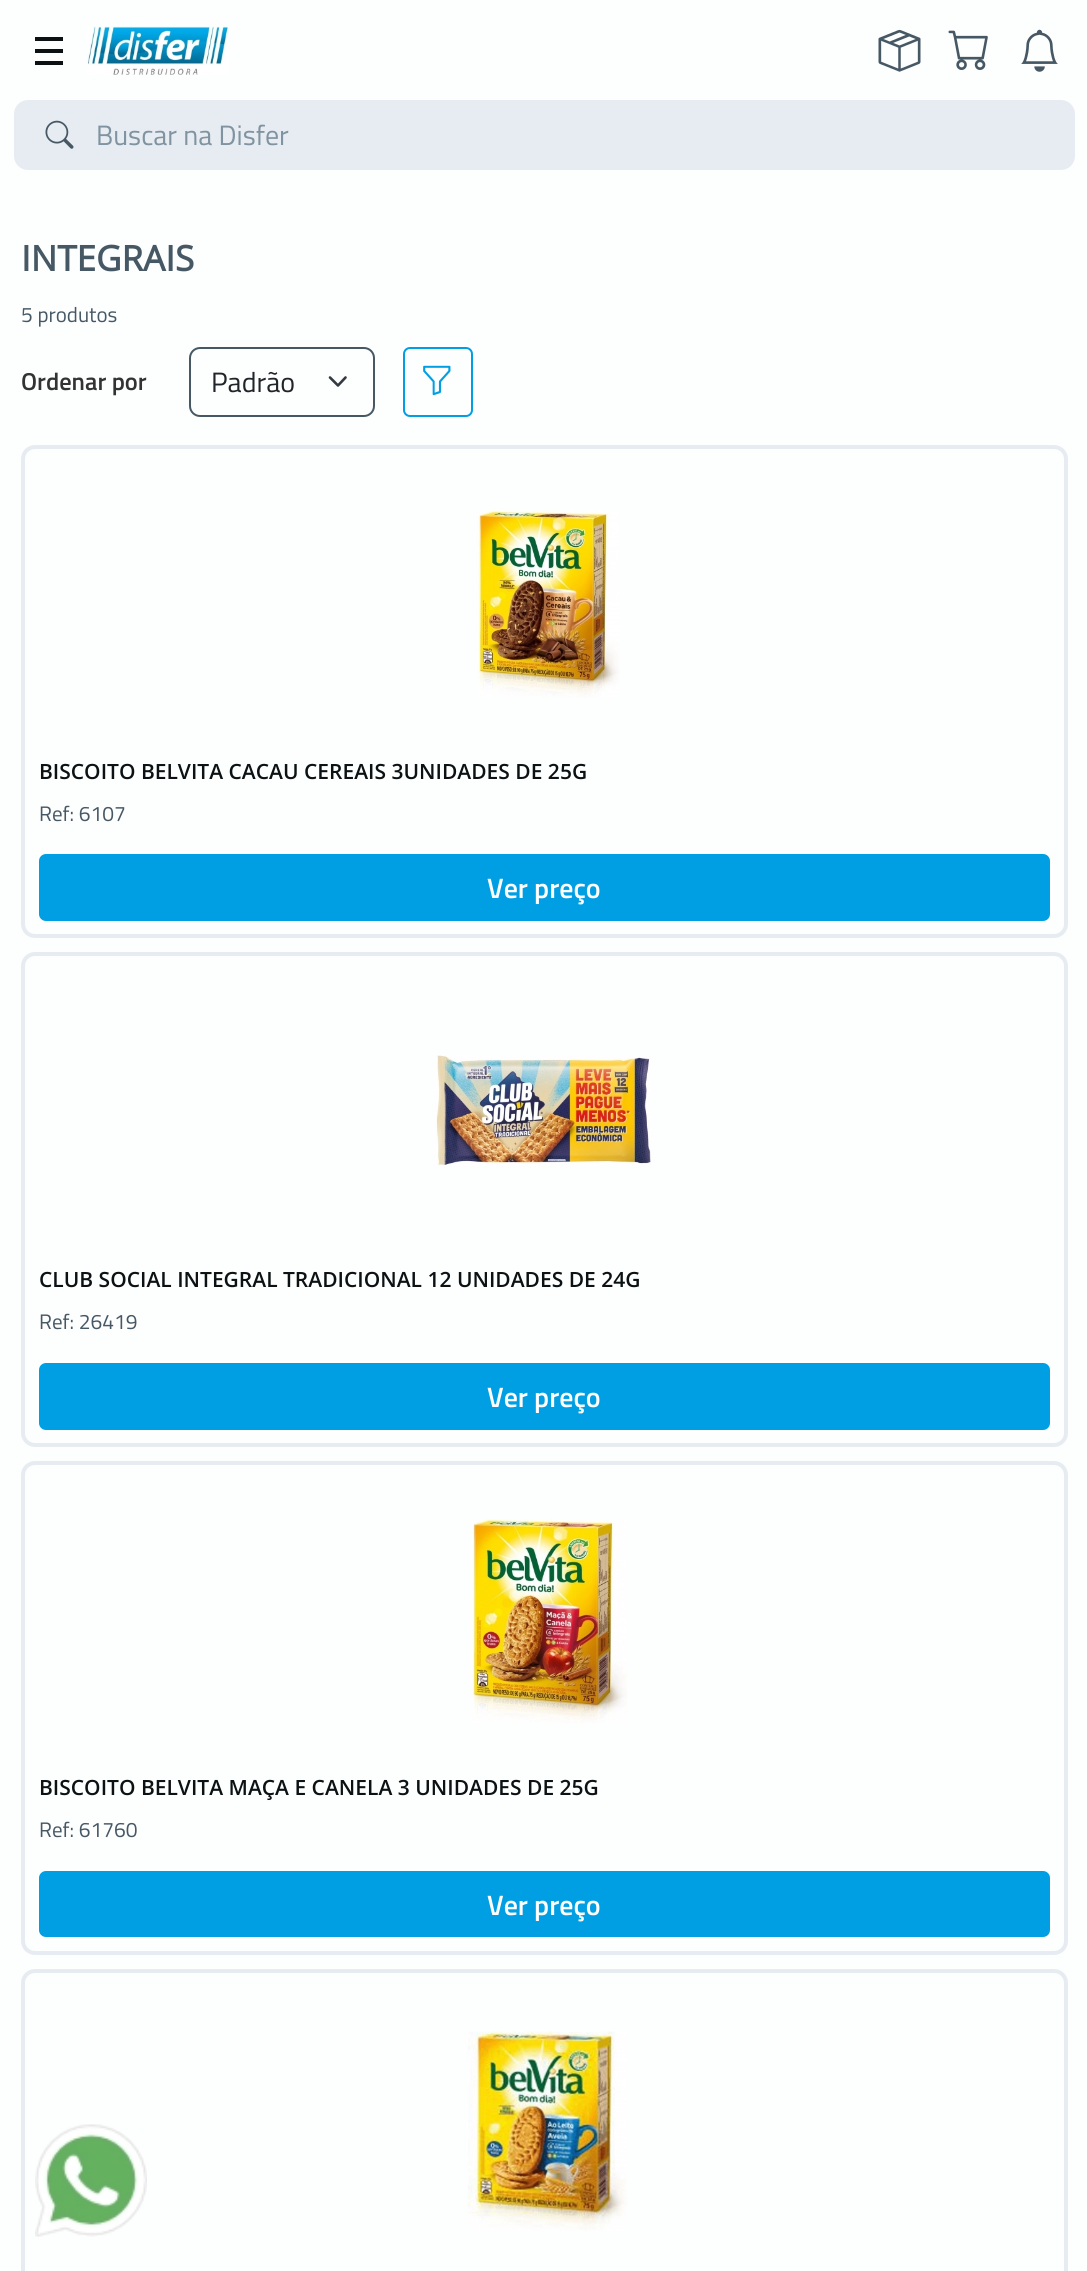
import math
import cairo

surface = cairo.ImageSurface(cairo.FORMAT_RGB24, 1087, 2271)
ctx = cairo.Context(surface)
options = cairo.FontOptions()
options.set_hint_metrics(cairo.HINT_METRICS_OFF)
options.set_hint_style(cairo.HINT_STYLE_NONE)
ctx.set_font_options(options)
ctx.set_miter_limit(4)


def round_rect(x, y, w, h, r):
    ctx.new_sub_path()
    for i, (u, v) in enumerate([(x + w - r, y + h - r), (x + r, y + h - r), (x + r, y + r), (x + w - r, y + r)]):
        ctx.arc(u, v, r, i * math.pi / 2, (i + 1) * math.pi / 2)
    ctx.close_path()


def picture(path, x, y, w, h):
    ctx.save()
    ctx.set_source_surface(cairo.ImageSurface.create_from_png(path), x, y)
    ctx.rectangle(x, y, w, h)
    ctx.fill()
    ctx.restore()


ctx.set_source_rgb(0.992, 0.996, 0.996)
ctx.paint()
ctx.set_source_rgb(0.047, 0.067, 0.078)
ctx.rectangle(35, 37, 28, 4)
ctx.fill()
ctx.rectangle(35, 49, 28, 4)
ctx.fill()
ctx.rectangle(35, 61, 28, 4)
ctx.fill()
picture("img1.png", 87, 26, 142, 49)
picture("img2.png", 878, 29, 43, 43)
picture("img3.png", 948, 30, 40, 40)
picture("img4.png", 1021, 29, 37, 43)
ctx.set_source_rgb(0.902, 0.922, 0.945)
round_rect(14, 100, 1061, 70, 14)
ctx.fill()
picture("img5.png", 45, 120, 29, 29)
ctx.select_font_face("Titillium Web")
ctx.set_font_size(28)
ctx.set_source_rgb(0.502, 0.576, 0.627)
ctx.move_to(96, 145)
ctx.show_text("Buscar na Disfer")
ctx.select_font_face("Open Sans", cairo.FONT_SLANT_NORMAL, cairo.FONT_WEIGHT_BOLD)
ctx.set_font_size(35)
ctx.set_source_rgb(0.278, 0.345, 0.396)
ctx.move_to(21, 271)
ctx.show_text("INTEGRAIS")
ctx.select_font_face("Titillium Web")
ctx.set_font_size(21)
ctx.move_to(21, 322)
ctx.show_text("5 produtos")
ctx.select_font_face("Titillium Web SemiBold")
ctx.set_font_size(24.5)
ctx.set_source_rgb(0.2, 0.2, 0.2)
ctx.move_to(21, 390)
ctx.show_text("Ordenar por")
ctx.new_path()
ctx.move_to(330, 377.5)
ctx.line_to(338, 385.5)
ctx.line_to(345.5, 377.5)
ctx.set_source_rgb(0.204, 0.227, 0.251)
ctx.set_line_width(2.6)
ctx.set_line_cap(cairo.LINE_CAP_ROUND)
ctx.set_line_join(cairo.LINE_JOIN_ROUND)
ctx.stroke()
round_rect(190, 348, 184, 68, 10)
ctx.set_source_rgb(0.278, 0.345, 0.396)
ctx.set_line_width(2)
ctx.set_line_cap(cairo.LINE_CAP_BUTT)
ctx.set_line_join(cairo.LINE_JOIN_MITER)
ctx.stroke()
ctx.select_font_face("Titillium Web")
ctx.set_font_size(28)
ctx.set_source_rgb(0.129, 0.145, 0.161)
ctx.move_to(211, 392)
ctx.show_text("Padrão")
round_rect(404, 348, 68, 68, 6)
ctx.set_source_rgb(0, 0.624, 0.89)
ctx.stroke()
picture("img6.png", 423, 365, 28, 31)
round_rect(23, 447, 1043, 489, 12)
ctx.set_source_rgb(0.902, 0.922, 0.945)
ctx.set_line_width(4)
ctx.stroke()
picture("img7.png", 477, 510, 143, 188)
ctx.select_font_face("Open Sans SemiBold")
ctx.set_font_size(21)
ctx.set_source_rgb(0.047, 0.067, 0.078)
ctx.move_to(39, 779)
ctx.show_text("BISCOITO BELVITA CACAU CEREAIS 3UNIDADES DE 25G")
ctx.select_font_face("Titillium Web")
ctx.set_source_rgb(0.278, 0.345, 0.396)
ctx.move_to(39, 821)
ctx.show_text("Ref: 6107")
ctx.set_source_rgb(0, 0.624, 0.89)
round_rect(40, 855, 1009, 65, 6)
ctx.fill_preserve()
ctx.set_line_width(2)
ctx.stroke()
ctx.select_font_face("Titillium Web SemiBold")
ctx.set_font_size(28)
ctx.set_source_rgb(0.992, 0.996, 0.996)
ctx.move_to(487, 898)
ctx.show_text("Ver preço")
round_rect(23, 954, 1043, 491, 12)
ctx.set_source_rgb(0.902, 0.922, 0.945)
ctx.set_line_width(4)
ctx.stroke()
picture("img8.png", 436, 1055, 215, 111)
ctx.select_font_face("Open Sans SemiBold")
ctx.set_font_size(21)
ctx.set_source_rgb(0.047, 0.067, 0.078)
ctx.move_to(39, 1287)
ctx.show_text("CLUB SOCIAL INTEGRAL TRADICIONAL 12 UNIDADES DE 24G")
ctx.select_font_face("Titillium Web")
ctx.set_source_rgb(0.278, 0.345, 0.396)
ctx.move_to(39, 1329)
ctx.show_text("Ref: 26419")
ctx.set_source_rgb(0, 0.624, 0.89)
round_rect(40, 1364, 1009, 65, 6)
ctx.fill_preserve()
ctx.set_line_width(2)
ctx.stroke()
ctx.select_font_face("Titillium Web SemiBold")
ctx.set_font_size(28)
ctx.set_source_rgb(0.992, 0.996, 0.996)
ctx.move_to(487, 1407)
ctx.show_text("Ver preço")
round_rect(23, 1463, 1043, 490, 12)
ctx.set_source_rgb(0.902, 0.922, 0.945)
ctx.set_line_width(4)
ctx.stroke()
picture("img9.png", 471, 1519, 156, 204)
ctx.select_font_face("Open Sans SemiBold")
ctx.set_font_size(21)
ctx.set_source_rgb(0.047, 0.067, 0.078)
ctx.move_to(39, 1795)
ctx.show_text("BISCOITO BELVITA MAÇA E CANELA 3 UNIDADES DE 25G")
ctx.select_font_face("Titillium Web")
ctx.set_source_rgb(0.278, 0.345, 0.396)
ctx.move_to(39, 1837)
ctx.show_text("Ref: 61760")
ctx.set_source_rgb(0, 0.624, 0.89)
round_rect(40, 1872, 1009, 64, 6)
ctx.fill_preserve()
ctx.set_line_width(2)
ctx.stroke()
ctx.select_font_face("Titillium Web SemiBold")
ctx.set_font_size(28)
ctx.set_source_rgb(0.992, 0.996, 0.996)
ctx.move_to(487, 1915)
ctx.show_text("Ver preço")
round_rect(23, 1971, 1043, 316, 12)
ctx.set_source_rgb(0.902, 0.922, 0.945)
ctx.set_line_width(4)
ctx.stroke()
picture("img10.png", 467, 2031, 160, 200)
picture("img11.png", 35, 2124, 112, 113)
surface.write_to_png("page.png")
